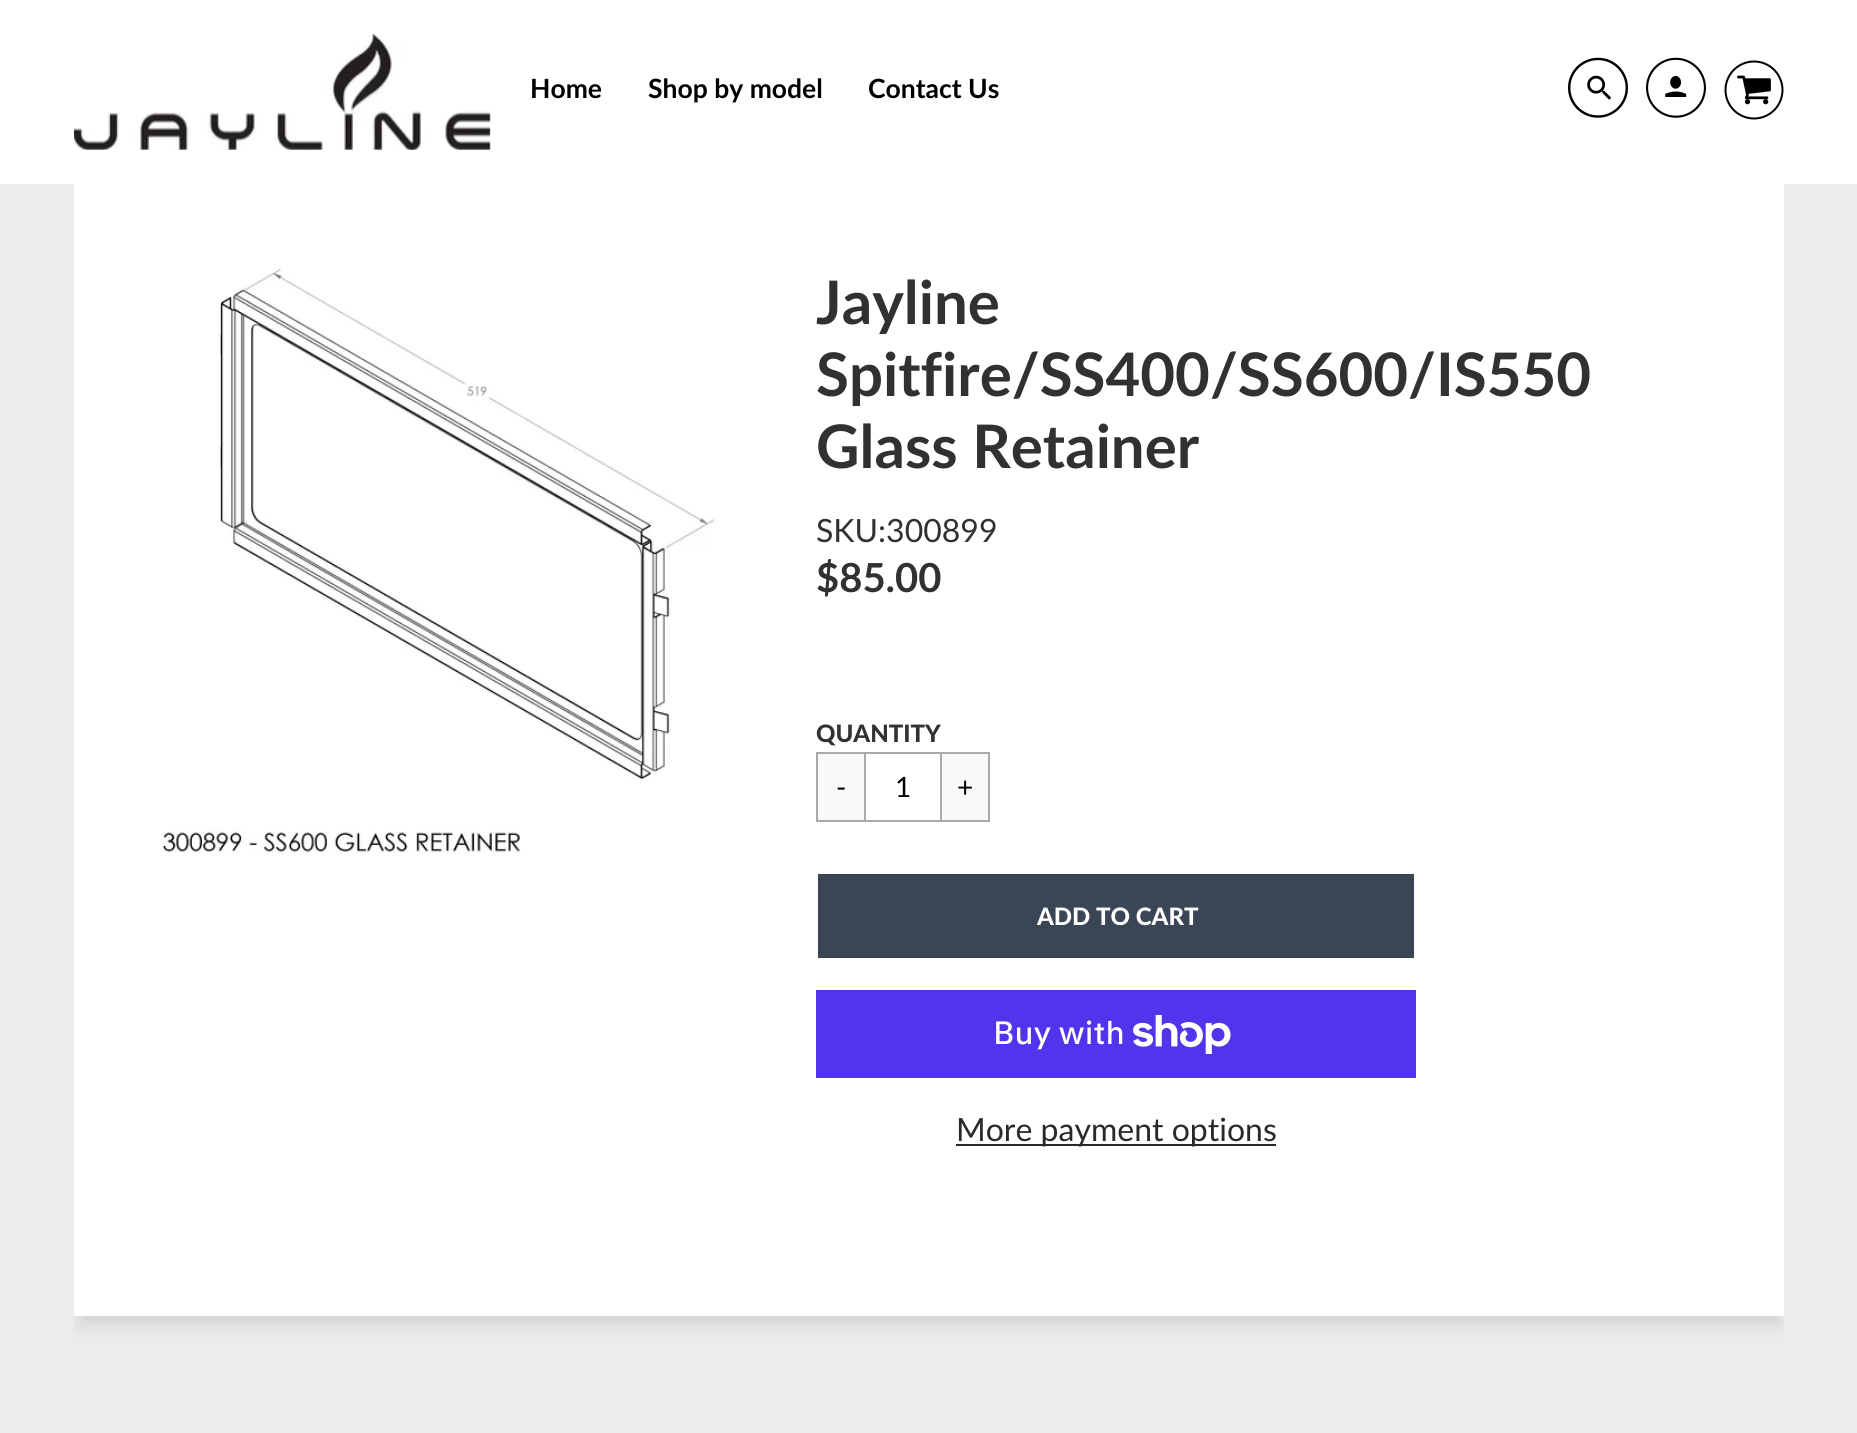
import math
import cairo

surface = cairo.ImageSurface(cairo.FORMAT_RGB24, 1857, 1433)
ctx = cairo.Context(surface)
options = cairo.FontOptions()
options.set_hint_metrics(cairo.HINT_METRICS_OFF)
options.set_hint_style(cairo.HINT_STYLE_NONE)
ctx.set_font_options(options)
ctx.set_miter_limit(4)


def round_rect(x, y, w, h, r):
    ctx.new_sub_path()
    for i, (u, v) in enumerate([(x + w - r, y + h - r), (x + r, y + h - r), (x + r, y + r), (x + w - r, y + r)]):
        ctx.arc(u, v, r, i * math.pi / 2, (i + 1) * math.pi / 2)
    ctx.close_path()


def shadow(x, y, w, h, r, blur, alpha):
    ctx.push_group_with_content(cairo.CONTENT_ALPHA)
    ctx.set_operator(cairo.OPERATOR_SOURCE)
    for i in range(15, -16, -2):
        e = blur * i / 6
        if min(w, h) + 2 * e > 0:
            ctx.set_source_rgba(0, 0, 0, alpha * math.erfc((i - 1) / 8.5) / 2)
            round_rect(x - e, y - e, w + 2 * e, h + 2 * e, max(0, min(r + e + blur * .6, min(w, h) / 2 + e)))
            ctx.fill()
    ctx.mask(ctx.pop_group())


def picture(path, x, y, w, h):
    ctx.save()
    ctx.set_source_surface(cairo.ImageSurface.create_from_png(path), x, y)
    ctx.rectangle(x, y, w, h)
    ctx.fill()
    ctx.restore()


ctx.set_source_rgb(0.925, 0.925, 0.922)
ctx.paint()
ctx.save()
ctx.rectangle(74, 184, 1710, 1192)
ctx.clip()
ctx.set_source_rgb(0.639, 0.639, 0.639)
shadow(78, 202, 1702, 1124, 0, 7, 0.32)
ctx.restore()
ctx.set_source_rgb(1, 1, 1)
ctx.rectangle(0, 0, 1857, 184)
ctx.fill()
picture("img1.png", 74, 34, 417, 116)
ctx.select_font_face("Lato", cairo.FONT_SLANT_NORMAL, cairo.FONT_WEIGHT_BOLD)
ctx.set_font_size(26.5)
ctx.set_source_rgb(0, 0, 0)
ctx.move_to(530, 98)
ctx.show_text("Home")
ctx.move_to(648, 98)
ctx.show_text("Shop by model")
ctx.move_to(868, 98)
ctx.show_text("Contact Us")
picture("img2.png", 1568, 57, 60, 61)
picture("img3.png", 1646, 57, 60, 61)
picture("img4.png", 1724, 60, 60, 60)
ctx.set_source_rgb(1, 1, 1)
ctx.rectangle(74, 184, 1710, 1132)
ctx.fill()
picture("img5.png", 162, 268, 553, 585)
ctx.set_font_size(60)
ctx.set_source_rgb(0.192, 0.192, 0.192)
ctx.move_to(816, 324)
ctx.show_text("Jayline")
ctx.move_to(816, 396)
ctx.show_text("Spitfire/SS400/SS600/IS550")
ctx.move_to(816, 468)
ctx.show_text("Glass Retainer")
ctx.select_font_face("Lato")
ctx.set_font_size(32)
ctx.move_to(816, 542)
ctx.show_text("SKU:300899")
ctx.select_font_face("Lato", cairo.FONT_SLANT_NORMAL, cairo.FONT_WEIGHT_BOLD)
ctx.set_font_size(40)
ctx.move_to(816, 592)
ctx.show_text("$85.00")
ctx.select_font_face("Lato Black")
ctx.set_font_size(24)
ctx.move_to(816, 742)
ctx.show_text("QUANTITY")
ctx.set_source_rgb(0.667, 0.667, 0.667)
ctx.rectangle(864, 752, 80, 2)
ctx.fill()
ctx.rectangle(864, 820, 80, 2)
ctx.fill()
ctx.set_source_rgb(0.973, 0.973, 0.973)
ctx.rectangle(817, 753, 48, 68)
ctx.fill_preserve()
ctx.set_source_rgb(0.667, 0.667, 0.667)
ctx.stroke()
ctx.select_font_face("Lato")
ctx.set_font_size(28)
ctx.set_source_rgb(0, 0, 0)
ctx.move_to(836, 797)
ctx.show_text("-")
ctx.move_to(895, 797)
ctx.show_text("1")
ctx.set_source_rgb(0.973, 0.973, 0.973)
ctx.rectangle(941, 753, 48, 68)
ctx.fill_preserve()
ctx.set_source_rgb(0.667, 0.667, 0.667)
ctx.stroke()
ctx.set_source_rgb(0, 0, 0)
ctx.move_to(957, 797)
ctx.show_text("+")
ctx.set_source_rgb(0.227, 0.271, 0.337)
ctx.rectangle(818, 874, 596, 84)
ctx.fill()
ctx.select_font_face("Lato Black")
ctx.set_font_size(24)
ctx.set_source_rgb(1, 1, 1)
ctx.move_to(1037, 925)
ctx.show_text("ADD TO CART")
ctx.set_source_rgb(0.329, 0.2, 0.922)
ctx.rectangle(816, 990, 600, 88)
ctx.fill()
ctx.select_font_face("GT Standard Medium")
ctx.set_font_size(32)
ctx.set_source_rgb(1, 1, 1)
ctx.move_to(993, 1044)
ctx.show_text("Buy with")
picture("img6.png", 1133, 1015, 98, 39)
ctx.set_source_rgb(0.161, 0.161, 0.161)
ctx.rectangle(956, 1144, 320, 2)
ctx.fill()
ctx.select_font_face("Lato")
ctx.move_to(956, 1141)
ctx.show_text("More payment options")
surface.write_to_png("page.png")
